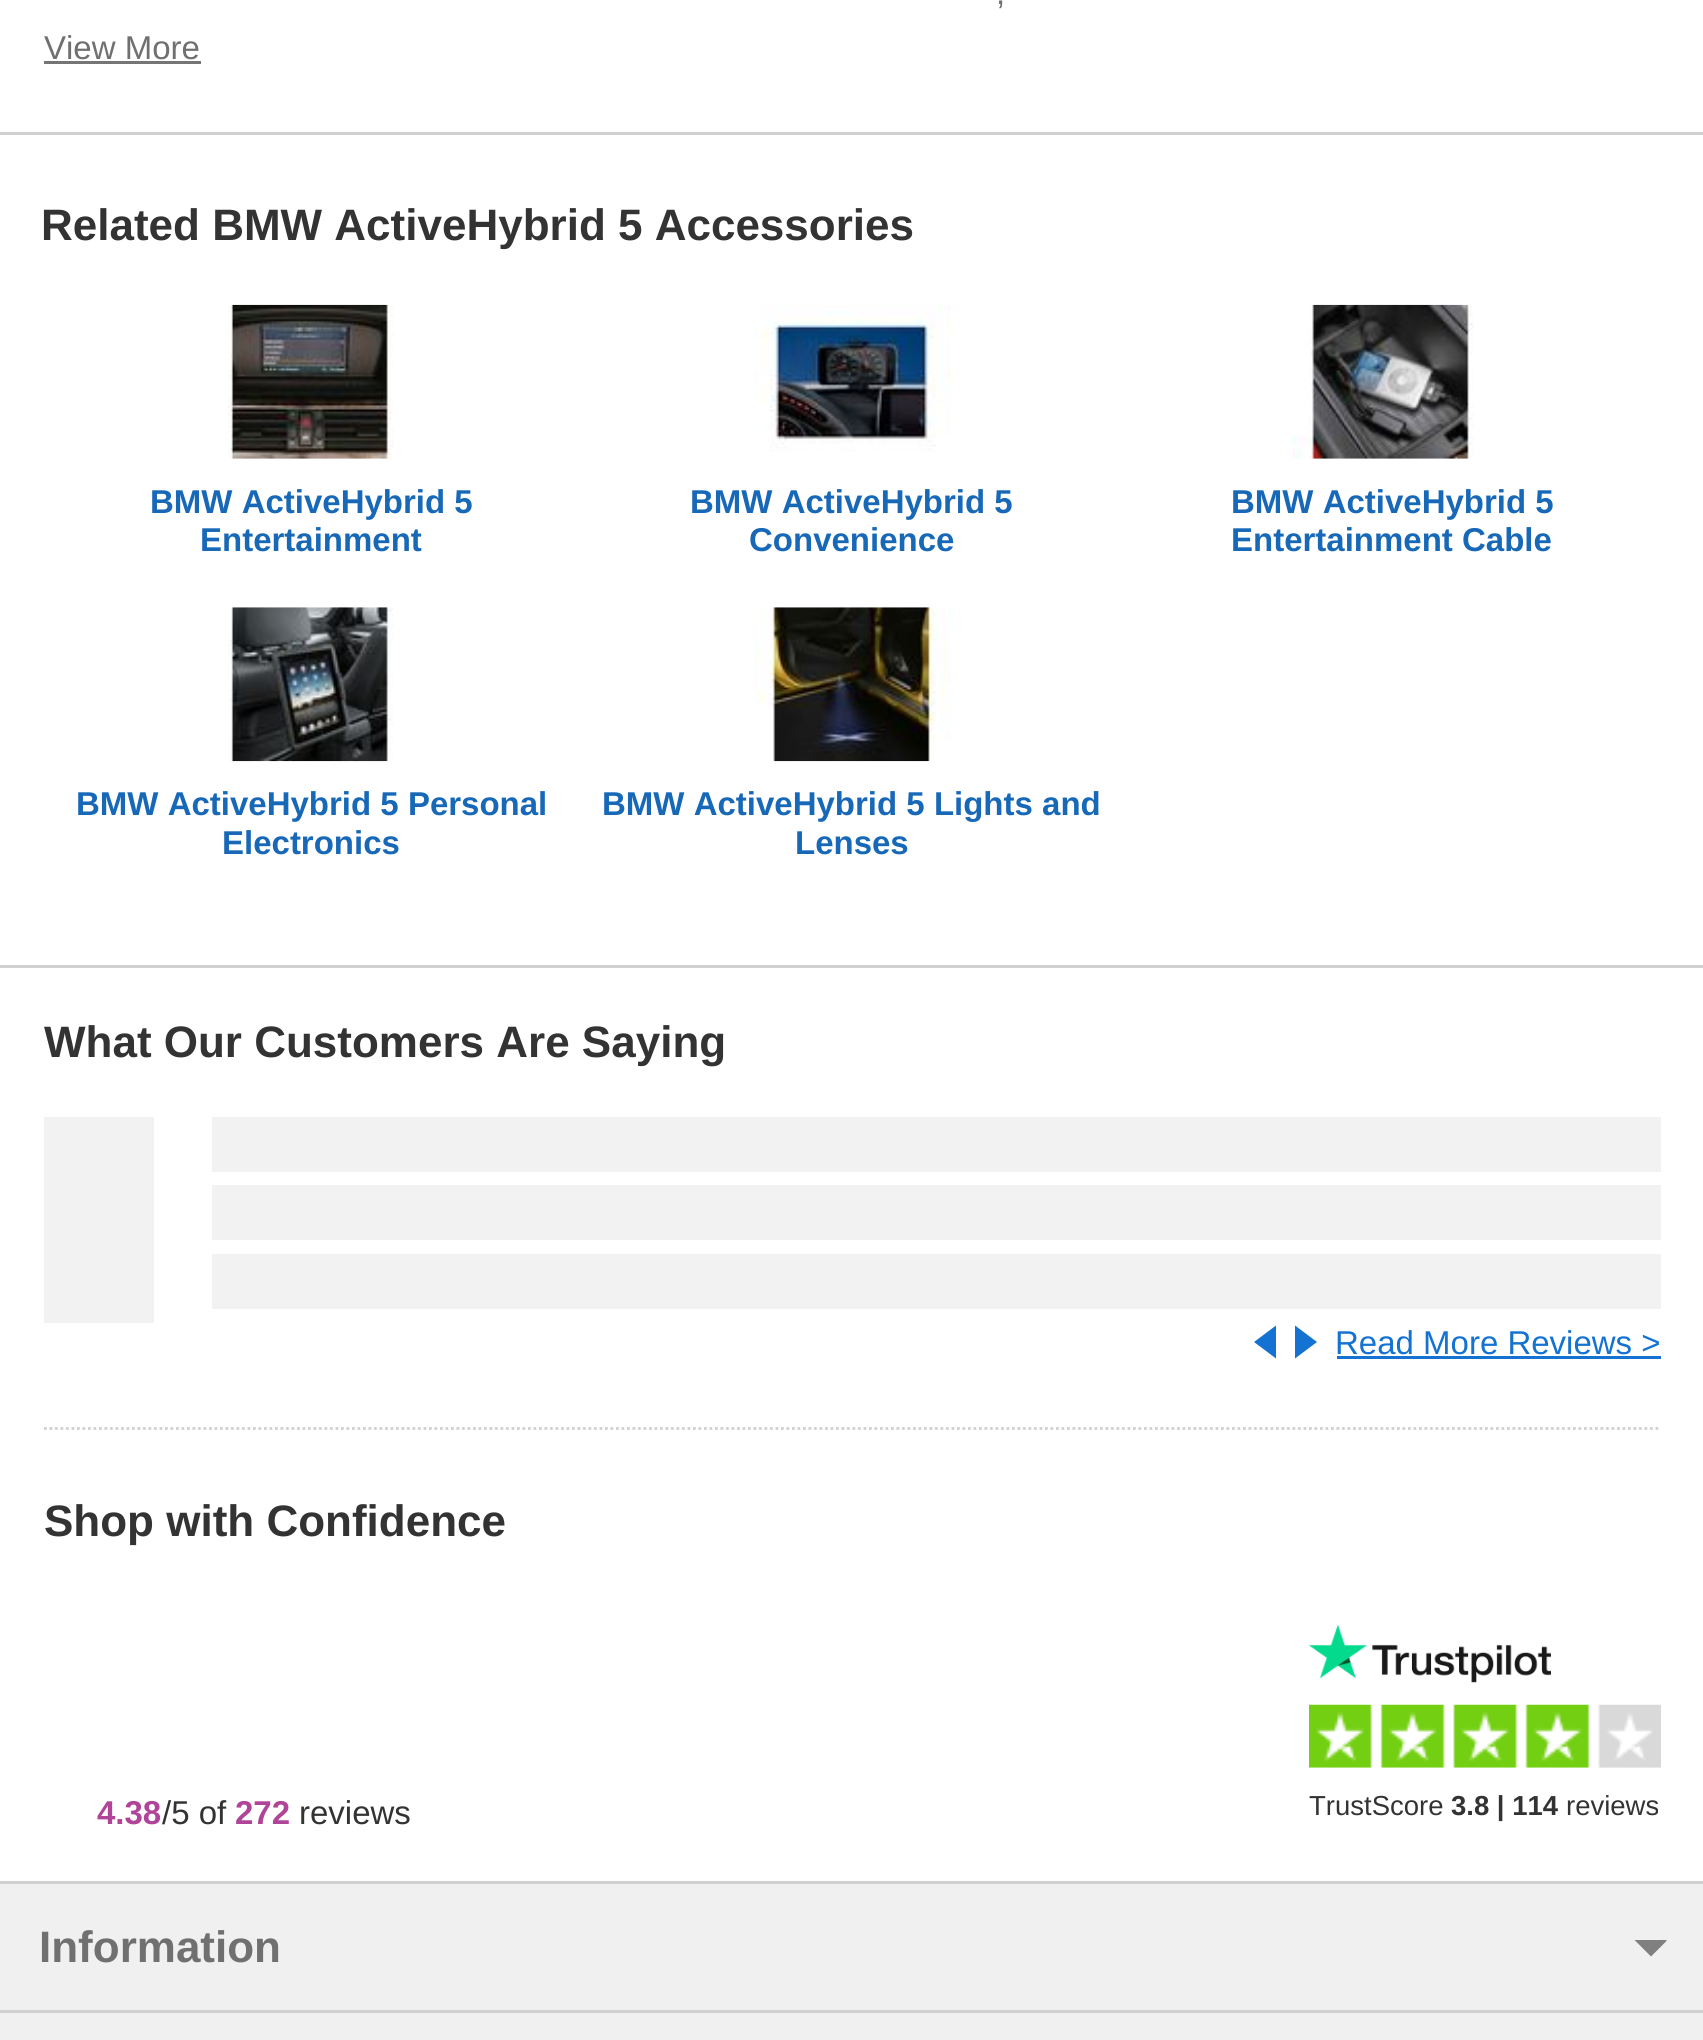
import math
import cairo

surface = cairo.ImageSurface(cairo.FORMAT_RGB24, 1703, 2040)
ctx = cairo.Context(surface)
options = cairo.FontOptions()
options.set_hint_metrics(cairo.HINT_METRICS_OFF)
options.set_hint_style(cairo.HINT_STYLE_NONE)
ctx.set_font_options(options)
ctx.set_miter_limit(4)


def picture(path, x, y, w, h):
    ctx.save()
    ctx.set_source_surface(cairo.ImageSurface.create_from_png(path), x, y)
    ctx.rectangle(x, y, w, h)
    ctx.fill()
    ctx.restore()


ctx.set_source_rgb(1, 1, 1)
ctx.paint()
ctx.set_source_rgb(0.816, 0.816, 0.816)
ctx.rectangle(0, 132, 1703, 3)
ctx.fill()
ctx.select_font_face("Liberation Sans")
ctx.set_font_size(33)
ctx.set_source_rgb(0.439, 0.439, 0.439)
ctx.move_to(996, 4)
ctx.show_text(",")
ctx.move_to(44, 59)
ctx.show_text("View More")
ctx.set_source_rgb(0.459, 0.459, 0.459)
ctx.rectangle(44, 61, 157, 3)
ctx.fill()
ctx.select_font_face("Liberation Sans", cairo.FONT_SLANT_NORMAL, cairo.FONT_WEIGHT_BOLD)
ctx.set_font_size(44)
ctx.set_source_rgb(0.2, 0.2, 0.2)
ctx.move_to(41, 240)
ctx.show_text("Related BMW ActiveHybrid 5 Accessories")
picture("img1.png", 228, 304, 166, 155)
ctx.set_font_size(33)
ctx.set_source_rgb(0.094, 0.408, 0.722)
ctx.move_to(150, 513)
ctx.show_text("BMW ActiveHybrid 5")
ctx.move_to(200, 551)
ctx.show_text("Entertainment")
picture("img2.png", 754, 305, 197, 147)
ctx.move_to(690, 513)
ctx.show_text("BMW ActiveHybrid 5")
ctx.move_to(749, 551)
ctx.show_text("Convenience")
picture("img3.png", 1292, 304, 182, 155)
ctx.move_to(1231, 513)
ctx.show_text("BMW ActiveHybrid 5")
ctx.move_to(1231, 551)
ctx.show_text("Entertainment Cable")
picture("img4.png", 228, 607, 166, 155)
ctx.move_to(76, 815)
ctx.show_text("BMW ActiveHybrid 5 Personal")
ctx.move_to(222, 854)
ctx.show_text("Electronics")
picture("img5.png", 754, 607, 197, 155)
ctx.move_to(602, 815)
ctx.show_text("BMW ActiveHybrid 5 Lights and")
ctx.move_to(795, 854)
ctx.show_text("Lenses")
ctx.set_source_rgb(0.816, 0.816, 0.816)
ctx.rectangle(0, 965, 1703, 3)
ctx.fill()
ctx.set_font_size(44)
ctx.set_source_rgb(0.2, 0.2, 0.2)
ctx.move_to(44, 1057)
ctx.show_text("What Our Customers Are Saying")
gradient = cairo.LinearGradient(44, 1220, 484, 1220)
gradient.add_color_stop_rgba(0.25, 0.949, 0.949, 0.949, 1)
gradient.add_color_stop_rgba(0.37, 0.902, 0.902, 0.902, 1)
gradient.add_color_stop_rgba(0.63, 0.949, 0.949, 0.949, 1)
ctx.set_source(gradient)
ctx.rectangle(44, 1117, 110, 206)
ctx.fill()
gradient = cairo.LinearGradient(212, 1144, 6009, 1144)
gradient.add_color_stop_rgba(0.25, 0.949, 0.949, 0.949, 1)
gradient.add_color_stop_rgba(0.37, 0.902, 0.902, 0.902, 1)
gradient.add_color_stop_rgba(0.63, 0.949, 0.949, 0.949, 1)
ctx.set_source(gradient)
ctx.rectangle(212, 1117, 1449, 55)
ctx.fill()
gradient = cairo.LinearGradient(212, 1213, 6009, 1213)
gradient.add_color_stop_rgba(0.25, 0.949, 0.949, 0.949, 1)
gradient.add_color_stop_rgba(0.37, 0.902, 0.902, 0.902, 1)
gradient.add_color_stop_rgba(0.63, 0.949, 0.949, 0.949, 1)
ctx.set_source(gradient)
ctx.rectangle(212, 1185, 1449, 55)
ctx.fill()
gradient = cairo.LinearGradient(212, 1282, 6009, 1281)
gradient.add_color_stop_rgba(0.25, 0.949, 0.949, 0.949, 1)
gradient.add_color_stop_rgba(0.37, 0.902, 0.902, 0.902, 1)
gradient.add_color_stop_rgba(0.63, 0.949, 0.949, 0.949, 1)
ctx.set_source(gradient)
ctx.rectangle(212, 1254, 1449, 55)
ctx.fill()
ctx.set_source_rgb(0.075, 0.447, 0.824)
ctx.new_path()
ctx.move_to(1276, 1325.5)
ctx.line_to(1276, 1358.5)
ctx.line_to(1254, 1342)
ctx.close_path()
ctx.move_to(1295, 1358.5)
ctx.line_to(1295, 1325.5)
ctx.line_to(1317, 1342)
ctx.close_path()
ctx.fill()
ctx.select_font_face("Liberation Sans")
ctx.set_font_size(33)
ctx.move_to(1335, 1354)
ctx.show_text("Read More Reviews >")
ctx.rectangle(1337, 1356, 324, 3)
ctx.fill()
ctx.new_path()
ctx.move_to(44, 1428.5)
ctx.line_to(1661, 1428.5)
ctx.set_source_rgb(0.816, 0.816, 0.816)
ctx.set_line_width(2.8)
ctx.set_dash([2.75, 2.75])
ctx.stroke()
ctx.select_font_face("Liberation Sans", cairo.FONT_SLANT_NORMAL, cairo.FONT_WEIGHT_BOLD)
ctx.set_font_size(44)
ctx.set_source_rgb(0.2, 0.2, 0.2)
ctx.move_to(44, 1536)
ctx.show_text("Shop with Confidence")
ctx.set_font_size(33)
ctx.set_source_rgb(0.686, 0.267, 0.6)
ctx.move_to(97, 1824)
ctx.show_text("4.38")
ctx.select_font_face("Liberation Sans")
ctx.set_source_rgb(0.2, 0.2, 0.2)
ctx.move_to(162, 1824)
ctx.show_text("/5 of")
ctx.select_font_face("Liberation Sans", cairo.FONT_SLANT_NORMAL, cairo.FONT_WEIGHT_BOLD)
ctx.set_source_rgb(0.686, 0.267, 0.6)
ctx.move_to(235, 1824)
ctx.show_text("272")
ctx.select_font_face("Liberation Sans")
ctx.set_source_rgb(0.2, 0.2, 0.2)
ctx.move_to(299, 1824)
ctx.show_text("reviews")
picture("img6.png", 1309, 1625, 242, 58)
picture("img7.png", 1309, 1704, 352, 64)
ctx.set_font_size(27.5)
ctx.move_to(1309, 1815)
ctx.show_text("TrustScore")
ctx.select_font_face("Liberation Sans", cairo.FONT_SLANT_NORMAL, cairo.FONT_WEIGHT_BOLD)
ctx.move_to(1451, 1815)
ctx.show_text("3.8 | 114")
ctx.select_font_face("Liberation Sans")
ctx.move_to(1566, 1815)
ctx.show_text("reviews")
ctx.set_source_rgb(0.941, 0.941, 0.941)
ctx.rectangle(0, 1884, 1703, 156)
ctx.fill()
ctx.set_source_rgb(0.816, 0.816, 0.816)
ctx.rectangle(0, 1881, 1703, 3)
ctx.fill()
ctx.rectangle(0, 2010, 1703, 3)
ctx.fill()
ctx.select_font_face("Liberation Sans", cairo.FONT_SLANT_NORMAL, cairo.FONT_WEIGHT_BOLD)
ctx.set_font_size(44)
ctx.set_source_rgb(0.439, 0.439, 0.439)
ctx.move_to(39, 1962)
ctx.show_text("Information")
ctx.set_source_rgb(0.502, 0.502, 0.502)
ctx.new_path()
ctx.move_to(1666.5, 1940)
ctx.line_to(1666.5, 1941)
ctx.line_to(1651, 1956.5)
ctx.line_to(1634.5, 1940)
ctx.close_path()
ctx.fill()
surface.write_to_png("page.png")
